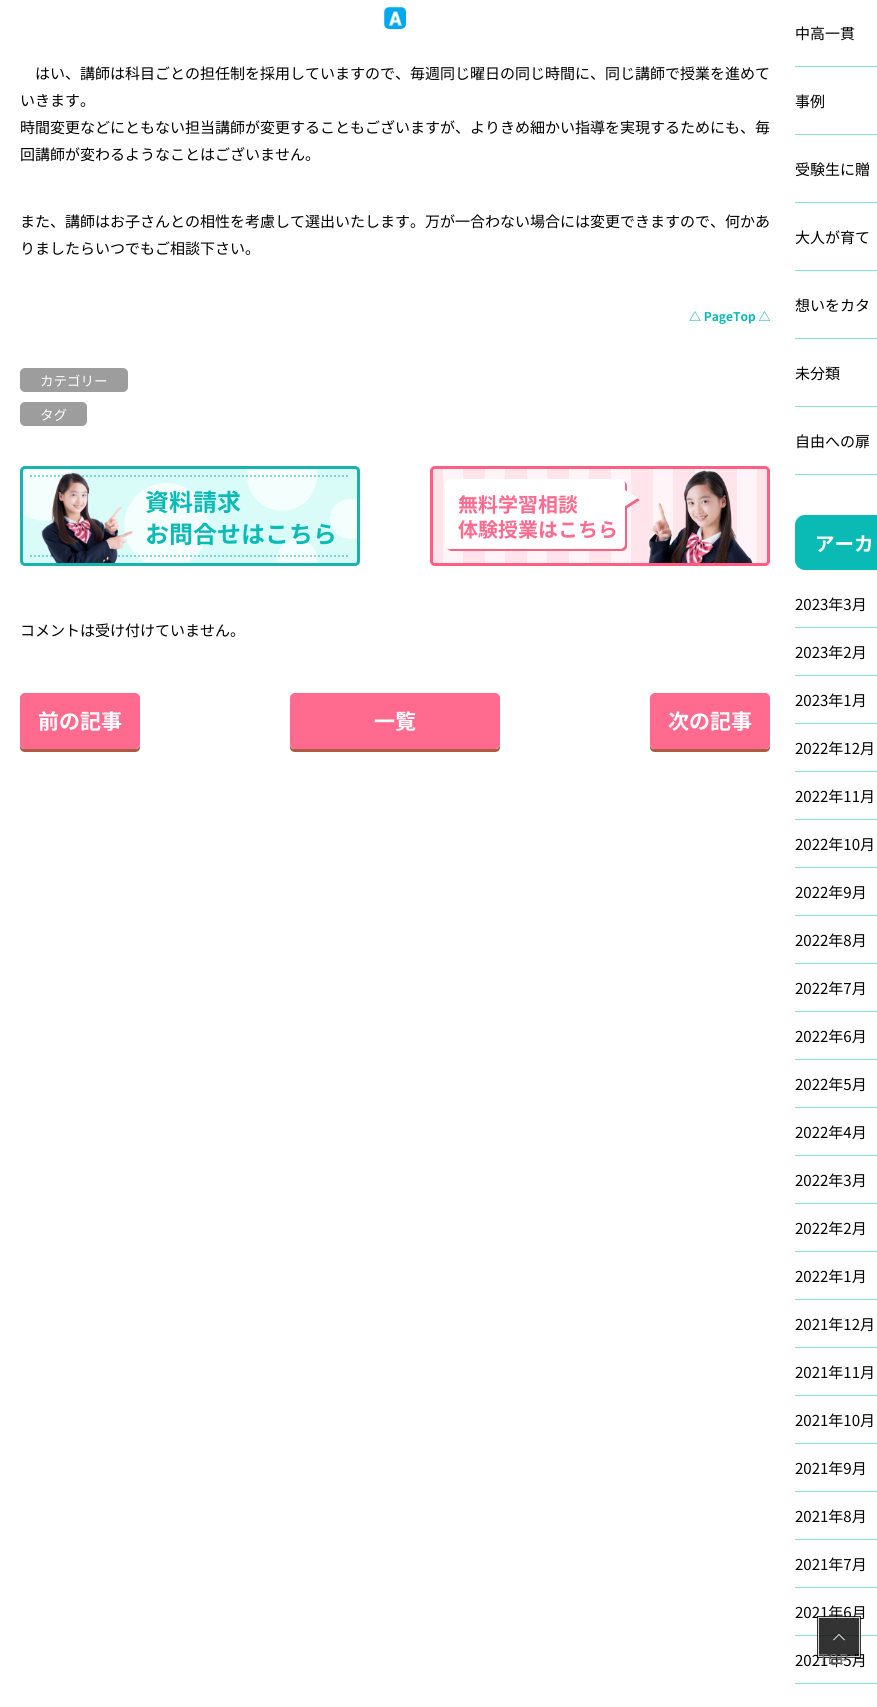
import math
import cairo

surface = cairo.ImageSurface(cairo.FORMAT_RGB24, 877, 1707)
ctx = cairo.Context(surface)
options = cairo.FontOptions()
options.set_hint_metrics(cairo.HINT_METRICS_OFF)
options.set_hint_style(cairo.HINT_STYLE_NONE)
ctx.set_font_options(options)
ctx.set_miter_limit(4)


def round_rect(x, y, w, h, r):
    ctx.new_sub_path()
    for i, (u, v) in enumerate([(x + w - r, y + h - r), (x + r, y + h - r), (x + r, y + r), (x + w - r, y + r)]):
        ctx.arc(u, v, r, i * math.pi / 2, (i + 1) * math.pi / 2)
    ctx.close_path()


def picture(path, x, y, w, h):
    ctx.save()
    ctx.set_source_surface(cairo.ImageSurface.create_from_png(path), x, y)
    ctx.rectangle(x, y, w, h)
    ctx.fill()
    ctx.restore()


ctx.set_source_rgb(1, 1, 1)
ctx.paint()
picture("img1.png", 384, 7, 22, 22)
ctx.select_font_face("Noto Sans JP")
ctx.set_font_size(15)
ctx.set_source_rgb(0, 0, 0)
ctx.move_to(35, 79)
ctx.show_text("はい、講師は科目ごとの担任制を採用していますので、毎週同じ曜日の同じ時間に、同じ講師で授業を進めて")
ctx.move_to(20, 106)
ctx.show_text("いきます。")
ctx.move_to(20, 133)
ctx.show_text("時間変更などにともない担当講師が変更することもございますが、よりきめ細かい指導を実現するためにも、毎")
ctx.move_to(20, 160)
ctx.show_text("回講師が変わるようなことはございません。")
ctx.move_to(20, 227)
ctx.show_text("また、講師はお子さんとの相性を考慮して選出いたします。万が一合わない場合には変更できますので、何かあ")
ctx.move_to(20, 254)
ctx.show_text("りましたらいつでもご相談下さい。")
ctx.select_font_face("Noto Sans JP", cairo.FONT_SLANT_NORMAL, cairo.FONT_WEIGHT_BOLD)
ctx.set_font_size(12)
ctx.set_source_rgb(0.039, 0.729, 0.71)
ctx.move_to(689, 321)
ctx.show_text("△ PageTop △")
ctx.set_source_rgb(0.616, 0.616, 0.616)
round_rect(20, 368, 108, 24, 5)
ctx.fill()
ctx.select_font_face("Noto Sans JP")
ctx.set_font_size(13.5)
ctx.set_source_rgb(1, 1, 1)
ctx.move_to(40, 386)
ctx.show_text("カテゴリー")
ctx.set_source_rgb(0.616, 0.616, 0.616)
round_rect(20, 402, 67, 24, 5)
ctx.fill()
ctx.set_source_rgb(1, 1, 1)
ctx.move_to(40, 420)
ctx.show_text("タグ")
picture("img2.png", 20, 466, 340, 100)
picture("img3.png", 430, 466, 340, 100)
ctx.set_font_size(15)
ctx.set_source_rgb(0, 0, 0)
ctx.move_to(20, 636)
ctx.show_text("コメントは受け付けていません。")
ctx.set_source_rgb(0.678, 0.357, 0.259)
ctx.new_path()
ctx.move_to(20, 744)
ctx.line_to(20, 747)
ctx.curve_to(20, 750, 22, 752, 25, 752)
ctx.line_to(135, 752)
ctx.curve_to(138, 752, 140, 750, 140, 747)
ctx.line_to(140, 744)
ctx.curve_to(140, 747, 138, 749, 135, 749)
ctx.line_to(25, 749)
ctx.curve_to(22, 749, 20, 747, 20, 744)
ctx.close_path()
ctx.fill()
ctx.set_source_rgb(1, 0.416, 0.557)
round_rect(20.5, 693.5, 119, 55, 4.5)
ctx.fill_preserve()
ctx.set_line_width(1)
ctx.stroke()
ctx.select_font_face("Noto Sans JP", cairo.FONT_SLANT_NORMAL, cairo.FONT_WEIGHT_BOLD)
ctx.set_font_size(21)
ctx.set_source_rgb(1, 1, 1)
ctx.move_to(38, 729)
ctx.show_text("前の記事")
ctx.set_source_rgb(0.678, 0.357, 0.259)
ctx.new_path()
ctx.move_to(290, 744)
ctx.line_to(290, 747)
ctx.curve_to(290, 750, 292, 752, 295, 752)
ctx.line_to(495, 752)
ctx.curve_to(498, 752, 500, 750, 500, 747)
ctx.line_to(500, 744)
ctx.curve_to(500, 747, 498, 749, 495, 749)
ctx.line_to(295, 749)
ctx.curve_to(292, 749, 290, 747, 290, 744)
ctx.close_path()
ctx.fill()
ctx.set_source_rgb(1, 0.416, 0.557)
round_rect(290.5, 693.5, 209, 55, 4.5)
ctx.fill_preserve()
ctx.stroke()
ctx.set_source_rgb(1, 1, 1)
ctx.move_to(374, 729)
ctx.show_text("一覧")
ctx.set_source_rgb(0.678, 0.357, 0.259)
ctx.new_path()
ctx.move_to(650, 744)
ctx.line_to(650, 747)
ctx.curve_to(650, 750, 652, 752, 655, 752)
ctx.line_to(765, 752)
ctx.curve_to(768, 752, 770, 750, 770, 747)
ctx.line_to(770, 744)
ctx.curve_to(770, 747, 768, 749, 765, 749)
ctx.line_to(655, 749)
ctx.curve_to(652, 749, 650, 747, 650, 744)
ctx.close_path()
ctx.fill()
ctx.set_source_rgb(1, 0.416, 0.557)
round_rect(650.5, 693.5, 119, 55, 4.5)
ctx.fill_preserve()
ctx.stroke()
ctx.set_source_rgb(1, 1, 1)
ctx.move_to(668, 729)
ctx.show_text("次の記事")
ctx.set_source_rgb(0.502, 0.902, 0.863)
ctx.rectangle(795, 66, 82, 1)
ctx.fill()
ctx.select_font_face("Noto Sans JP")
ctx.set_font_size(15)
ctx.set_source_rgb(0, 0, 0)
ctx.move_to(795, 39)
ctx.show_text("中高一貫")
ctx.set_source_rgb(0.502, 0.902, 0.863)
ctx.rectangle(795, 134, 82, 1)
ctx.fill()
ctx.set_source_rgb(0, 0, 0)
ctx.move_to(795, 107)
ctx.show_text("事例")
ctx.set_source_rgb(0.502, 0.902, 0.863)
ctx.rectangle(795, 202, 82, 1)
ctx.fill()
ctx.set_source_rgb(0, 0, 0)
ctx.move_to(795, 175)
ctx.show_text("受験生に贈")
ctx.set_source_rgb(0.502, 0.902, 0.863)
ctx.rectangle(795, 270, 82, 1)
ctx.fill()
ctx.set_source_rgb(0, 0, 0)
ctx.move_to(795, 243)
ctx.show_text("大人が育て")
ctx.set_source_rgb(0.502, 0.902, 0.863)
ctx.rectangle(795, 338, 82, 1)
ctx.fill()
ctx.set_source_rgb(0, 0, 0)
ctx.move_to(795, 311)
ctx.show_text("想いをカタ")
ctx.set_source_rgb(0.502, 0.902, 0.863)
ctx.rectangle(795, 406, 82, 1)
ctx.fill()
ctx.set_source_rgb(0, 0, 0)
ctx.move_to(795, 379)
ctx.show_text("未分類")
ctx.set_source_rgb(0.502, 0.902, 0.863)
ctx.rectangle(795, 474, 82, 1)
ctx.fill()
ctx.set_source_rgb(0, 0, 0)
ctx.move_to(795, 447)
ctx.show_text("自由への扉")
ctx.set_source_rgb(0.039, 0.729, 0.71)
round_rect(795, 515, 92, 55, 10)
ctx.fill()
ctx.select_font_face("Noto Sans JP", cairo.FONT_SLANT_NORMAL, cairo.FONT_WEIGHT_BOLD)
ctx.set_font_size(19.5)
ctx.set_source_rgb(1, 1, 1)
ctx.move_to(815, 551)
ctx.show_text("アーカ")
ctx.set_source_rgb(0.502, 0.902, 0.863)
ctx.rectangle(795, 627, 82, 1)
ctx.fill()
ctx.select_font_face("Noto Sans JP")
ctx.set_font_size(15)
ctx.set_source_rgb(0, 0, 0)
ctx.move_to(795, 610)
ctx.show_text("2023年3月")
ctx.set_source_rgb(0.502, 0.902, 0.863)
ctx.rectangle(795, 675, 82, 1)
ctx.fill()
ctx.set_source_rgb(0, 0, 0)
ctx.move_to(795, 658)
ctx.show_text("2023年2月")
ctx.set_source_rgb(0.502, 0.902, 0.863)
ctx.rectangle(795, 723, 82, 1)
ctx.fill()
ctx.set_source_rgb(0, 0, 0)
ctx.move_to(795, 706)
ctx.show_text("2023年1月")
ctx.set_source_rgb(0.502, 0.902, 0.863)
ctx.rectangle(795, 771, 82, 1)
ctx.fill()
ctx.set_source_rgb(0, 0, 0)
ctx.move_to(795, 754)
ctx.show_text("2022年12月")
ctx.set_source_rgb(0.502, 0.902, 0.863)
ctx.rectangle(795, 819, 82, 1)
ctx.fill()
ctx.set_source_rgb(0, 0, 0)
ctx.move_to(795, 802)
ctx.show_text("2022年11月")
ctx.set_source_rgb(0.502, 0.902, 0.863)
ctx.rectangle(795, 867, 82, 1)
ctx.fill()
ctx.set_source_rgb(0, 0, 0)
ctx.move_to(795, 850)
ctx.show_text("2022年10月")
ctx.set_source_rgb(0.502, 0.902, 0.863)
ctx.rectangle(795, 915, 82, 1)
ctx.fill()
ctx.set_source_rgb(0, 0, 0)
ctx.move_to(795, 898)
ctx.show_text("2022年9月")
ctx.set_source_rgb(0.502, 0.902, 0.863)
ctx.rectangle(795, 963, 82, 1)
ctx.fill()
ctx.set_source_rgb(0, 0, 0)
ctx.move_to(795, 946)
ctx.show_text("2022年8月")
ctx.set_source_rgb(0.502, 0.902, 0.863)
ctx.rectangle(795, 1011, 82, 1)
ctx.fill()
ctx.set_source_rgb(0, 0, 0)
ctx.move_to(795, 994)
ctx.show_text("2022年7月")
ctx.set_source_rgb(0.502, 0.902, 0.863)
ctx.rectangle(795, 1059, 82, 1)
ctx.fill()
ctx.set_source_rgb(0, 0, 0)
ctx.move_to(795, 1042)
ctx.show_text("2022年6月")
ctx.set_source_rgb(0.502, 0.902, 0.863)
ctx.rectangle(795, 1107, 82, 1)
ctx.fill()
ctx.set_source_rgb(0, 0, 0)
ctx.move_to(795, 1090)
ctx.show_text("2022年5月")
ctx.set_source_rgb(0.502, 0.902, 0.863)
ctx.rectangle(795, 1155, 82, 1)
ctx.fill()
ctx.set_source_rgb(0, 0, 0)
ctx.move_to(795, 1138)
ctx.show_text("2022年4月")
ctx.set_source_rgb(0.502, 0.902, 0.863)
ctx.rectangle(795, 1203, 82, 1)
ctx.fill()
ctx.set_source_rgb(0, 0, 0)
ctx.move_to(795, 1186)
ctx.show_text("2022年3月")
ctx.set_source_rgb(0.502, 0.902, 0.863)
ctx.rectangle(795, 1251, 82, 1)
ctx.fill()
ctx.set_source_rgb(0, 0, 0)
ctx.move_to(795, 1234)
ctx.show_text("2022年2月")
ctx.set_source_rgb(0.502, 0.902, 0.863)
ctx.rectangle(795, 1299, 82, 1)
ctx.fill()
ctx.set_source_rgb(0, 0, 0)
ctx.move_to(795, 1282)
ctx.show_text("2022年1月")
ctx.set_source_rgb(0.502, 0.902, 0.863)
ctx.rectangle(795, 1347, 82, 1)
ctx.fill()
ctx.set_source_rgb(0, 0, 0)
ctx.move_to(795, 1330)
ctx.show_text("2021年12月")
ctx.set_source_rgb(0.502, 0.902, 0.863)
ctx.rectangle(795, 1395, 82, 1)
ctx.fill()
ctx.set_source_rgb(0, 0, 0)
ctx.move_to(795, 1378)
ctx.show_text("2021年11月")
ctx.set_source_rgb(0.502, 0.902, 0.863)
ctx.rectangle(795, 1443, 82, 1)
ctx.fill()
ctx.set_source_rgb(0, 0, 0)
ctx.move_to(795, 1426)
ctx.show_text("2021年10月")
ctx.set_source_rgb(0.502, 0.902, 0.863)
ctx.rectangle(795, 1491, 82, 1)
ctx.fill()
ctx.set_source_rgb(0, 0, 0)
ctx.move_to(795, 1474)
ctx.show_text("2021年9月")
ctx.set_source_rgb(0.502, 0.902, 0.863)
ctx.rectangle(795, 1539, 82, 1)
ctx.fill()
ctx.set_source_rgb(0, 0, 0)
ctx.move_to(795, 1522)
ctx.show_text("2021年8月")
ctx.set_source_rgb(0.502, 0.902, 0.863)
ctx.rectangle(795, 1587, 82, 1)
ctx.fill()
ctx.set_source_rgb(0, 0, 0)
ctx.move_to(795, 1570)
ctx.show_text("2021年7月")
ctx.set_source_rgb(0.502, 0.902, 0.863)
ctx.rectangle(795, 1635, 82, 1)
ctx.fill()
ctx.set_source_rgb(0, 0, 0)
ctx.move_to(795, 1618)
ctx.show_text("2021年6月")
ctx.set_source_rgb(0.502, 0.902, 0.863)
ctx.rectangle(795, 1683, 82, 1)
ctx.fill()
ctx.set_source_rgb(0, 0, 0)
ctx.move_to(795, 1666)
ctx.show_text("2021年5月")
ctx.rectangle(818, 1617, 42, 40)
ctx.set_source_rgba(0, 0, 0, 0.8)
ctx.set_line_width(2)
ctx.stroke()
ctx.rectangle(818.5, 1617.5, 41, 39)
ctx.set_source_rgba(1, 1, 1, 0.8)
ctx.set_line_width(1)
ctx.stroke()
ctx.set_source_rgba(0, 0, 0, 0.8)
ctx.rectangle(819, 1618, 40, 38)
ctx.fill()
picture("img4.png", 833, 1634, 12, 7)
ctx.set_source_rgb(0.443, 0.443, 0.443)
ctx.move_to(819, 1665)
ctx.show_text("TOP")
surface.write_to_png("page.png")
